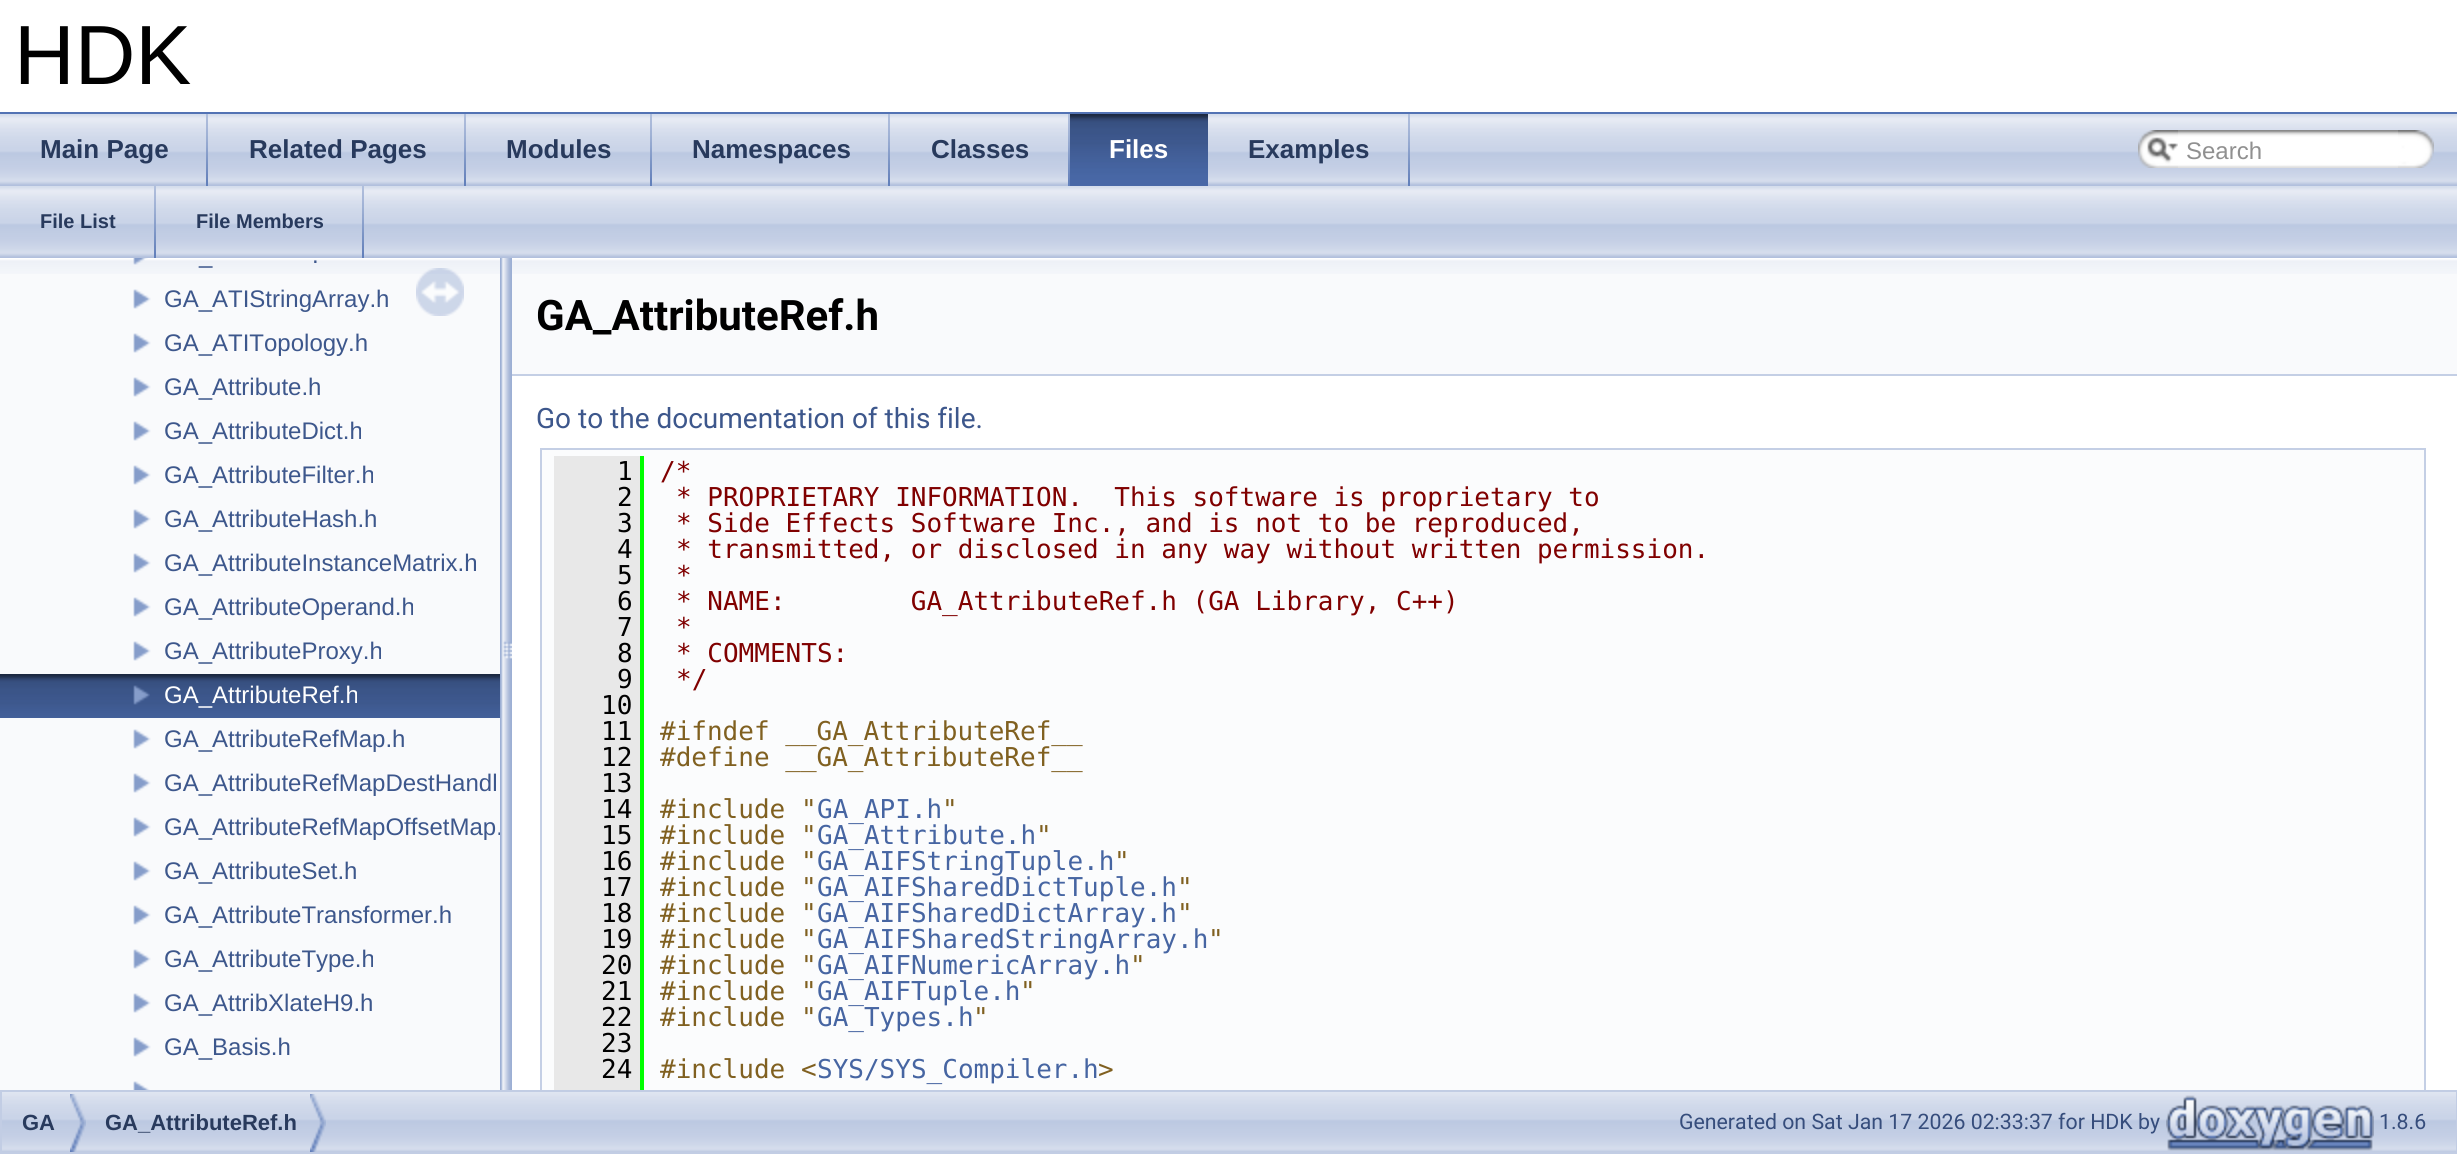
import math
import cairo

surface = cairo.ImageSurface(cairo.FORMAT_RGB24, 2457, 1154)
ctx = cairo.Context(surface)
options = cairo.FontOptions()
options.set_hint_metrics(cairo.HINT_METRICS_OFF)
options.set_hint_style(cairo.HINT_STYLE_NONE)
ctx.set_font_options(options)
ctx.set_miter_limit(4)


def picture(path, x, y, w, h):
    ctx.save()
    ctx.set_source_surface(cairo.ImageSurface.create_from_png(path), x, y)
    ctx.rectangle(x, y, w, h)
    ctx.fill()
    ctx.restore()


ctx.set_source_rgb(1, 1, 1)
ctx.paint()
ctx.set_source_rgb(0.325, 0.451, 0.706)
ctx.rectangle(0, 112, 2457, 2)
ctx.fill()
ctx.select_font_face("Liberation Sans")
ctx.set_font_size(84)
ctx.set_source_rgb(0, 0, 0)
ctx.move_to(14, 84)
ctx.show_text("HDK")
picture("img1.png", 0, 114, 2457, 72)
picture("img2.png", 206, 114, 2, 72)
ctx.select_font_face("Liberation Sans", cairo.FONT_SLANT_NORMAL, cairo.FONT_WEIGHT_BOLD)
ctx.set_font_size(26)
ctx.set_source_rgb(0.157, 0.227, 0.365)
ctx.move_to(40, 158)
ctx.show_text("Main Page")
picture("img2.png", 464, 114, 2, 72)
ctx.move_to(249, 158)
ctx.show_text("Related Pages")
picture("img2.png", 650, 114, 2, 72)
ctx.move_to(506, 158)
ctx.show_text("Modules")
picture("img2.png", 888, 114, 2, 72)
ctx.move_to(692, 158)
ctx.show_text("Namespaces")
picture("img2.png", 1068, 114, 2, 72)
ctx.move_to(931, 158)
ctx.show_text("Classes")
picture("img3.png", 1070, 114, 138, 72)
ctx.set_source_rgb(1, 1, 1)
ctx.move_to(1109, 158)
ctx.show_text("Files")
picture("img2.png", 1408, 114, 2, 72)
ctx.set_source_rgb(0.157, 0.227, 0.365)
ctx.move_to(1248, 158)
ctx.show_text("Examples")
picture("img4.png", 2138, 130, 40, 38)
picture("img5.png", 2147, 137, 31, 26)
picture("img6.png", 2178, 130, 220, 38)
ctx.select_font_face("Liberation Sans")
ctx.set_font_size(24)
ctx.set_source_rgb(0.565, 0.565, 0.565)
ctx.move_to(2186, 159)
ctx.show_text("Search")
picture("img7.png", 2398, 130, 36, 38)
picture("img1.png", 0, 186, 2457, 72)
picture("img2.png", 154, 186, 2, 72)
ctx.select_font_face("Liberation Sans", cairo.FONT_SLANT_NORMAL, cairo.FONT_WEIGHT_BOLD)
ctx.set_font_size(20)
ctx.set_source_rgb(0.157, 0.227, 0.365)
ctx.move_to(40, 228)
ctx.show_text("File List")
picture("img2.png", 362, 186, 2, 72)
ctx.move_to(196, 228)
ctx.show_text("File Members")
ctx.set_source_rgb(0.976, 0.98, 0.988)
ctx.rectangle(0, 274, 500, 816)
ctx.fill()
picture("img8.png", 0, 258, 500, 16)
picture("img9.png", 133, 258, 15, 7)
ctx.select_font_face("Liberation Sans")
ctx.set_font_size(24)
ctx.set_source_rgb(0.239, 0.341, 0.549)
ctx.move_to(312, 263)
ctx.show_text(".")
ctx.move_to(199, 263)
ctx.show_text("_")
picture("img10.png", 133, 289, 18, 20)
ctx.move_to(164, 307)
ctx.show_text("GA_ATIStringArray.h")
picture("img10.png", 133, 333, 18, 20)
ctx.move_to(164, 351)
ctx.show_text("GA_ATITopology.h")
picture("img10.png", 133, 377, 18, 20)
ctx.move_to(164, 395)
ctx.show_text("GA_Attribute.h")
picture("img10.png", 133, 421, 18, 20)
ctx.move_to(164, 439)
ctx.show_text("GA_AttributeDict.h")
picture("img10.png", 133, 465, 18, 20)
ctx.move_to(164, 483)
ctx.show_text("GA_AttributeFilter.h")
picture("img10.png", 133, 509, 18, 20)
ctx.move_to(164, 527)
ctx.show_text("GA_AttributeHash.h")
picture("img10.png", 133, 553, 18, 20)
ctx.move_to(164, 571)
ctx.show_text("GA_AttributeInstanceMatrix.h")
picture("img10.png", 133, 597, 18, 20)
ctx.move_to(164, 615)
ctx.show_text("GA_AttributeOperand.h")
picture("img10.png", 133, 641, 18, 20)
ctx.move_to(164, 659)
ctx.show_text("GA_AttributeProxy.h")
picture("img11.png", 0, 674, 500, 44)
picture("img12.png", 133, 685, 17, 20)
ctx.set_source_rgb(1, 1, 1)
ctx.move_to(164, 703)
ctx.show_text("GA_AttributeRef.h")
picture("img10.png", 133, 729, 18, 20)
ctx.set_source_rgb(0.239, 0.341, 0.549)
ctx.move_to(164, 747)
ctx.show_text("GA_AttributeRefMap.h")
picture("img10.png", 133, 773, 18, 20)
ctx.move_to(164, 791)
ctx.show_text("GA_AttributeRefMapDestHandl")
picture("img10.png", 133, 817, 18, 20)
ctx.move_to(164, 835)
ctx.show_text("GA_AttributeRefMapOffsetMap.")
picture("img10.png", 133, 861, 18, 20)
ctx.move_to(164, 879)
ctx.show_text("GA_AttributeSet.h")
picture("img10.png", 133, 905, 18, 20)
ctx.move_to(164, 923)
ctx.show_text("GA_AttributeTransformer.h")
picture("img10.png", 133, 949, 18, 20)
ctx.move_to(164, 967)
ctx.show_text("GA_AttributeType.h")
picture("img10.png", 133, 993, 18, 20)
ctx.move_to(164, 1011)
ctx.show_text("GA_AttribXlateH9.h")
picture("img10.png", 133, 1037, 18, 20)
ctx.move_to(164, 1055)
ctx.show_text("GA_Basis.h")
picture("img13.png", 133, 1081, 17, 9)
picture("img14.png", 416, 268, 48, 48)
picture("img15.png", 500, 258, 12, 832)
ctx.set_source_rgb(0.976, 0.98, 0.988)
ctx.rectangle(512, 274, 1945, 100)
ctx.fill()
picture("img16.png", 512, 258, 1945, 16)
ctx.set_source_rgb(0.769, 0.812, 0.898)
ctx.rectangle(512, 374, 1945, 2)
ctx.fill()
ctx.select_font_face("Roboto", cairo.FONT_SLANT_NORMAL, cairo.FONT_WEIGHT_BOLD)
ctx.set_font_size(42)
ctx.set_source_rgb(0, 0, 0)
ctx.move_to(536, 330)
ctx.show_text("GA_AttributeRef.h")
ctx.select_font_face("Roboto")
ctx.set_font_size(28)
ctx.set_source_rgb(0.239, 0.341, 0.549)
ctx.move_to(536, 428)
ctx.show_text("Go to the documentation of this file.")
ctx.set_source_rgb(0.984, 0.988, 0.992)
ctx.rectangle(542, 450, 1882, 640)
ctx.fill()
ctx.rectangle(541, 449, 1884, 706)
ctx.set_source_rgb(0.769, 0.812, 0.898)
ctx.stroke()
ctx.set_source_rgb(0.91, 0.91, 0.91)
ctx.rectangle(554, 456, 86, 634)
ctx.fill()
ctx.select_font_face("DejaVu Sans Mono")
ctx.set_font_size(26)
ctx.set_source_rgb(0, 0, 0)
ctx.move_to(617, 480)
ctx.show_text("1")
ctx.set_source_rgb(0, 1, 0)
ctx.rectangle(640, 456, 4, 634)
ctx.fill()
ctx.set_source_rgb(0.502, 0, 0)
ctx.move_to(660, 480)
ctx.show_text("/*")
ctx.set_source_rgb(0, 0, 0)
ctx.move_to(617, 506)
ctx.show_text("2")
ctx.set_source_rgb(0.502, 0, 0)
ctx.move_to(676, 506)
ctx.show_text("* PROPRIETARY INFORMATION.  This software is proprietary to")
ctx.set_source_rgb(0, 0, 0)
ctx.move_to(617, 532)
ctx.show_text("3")
ctx.set_source_rgb(0.502, 0, 0)
ctx.move_to(676, 532)
ctx.show_text("* Side Effects Software Inc., and is not to be reproduced,")
ctx.set_source_rgb(0, 0, 0)
ctx.move_to(617, 558)
ctx.show_text("4")
ctx.set_source_rgb(0.502, 0, 0)
ctx.move_to(676, 558)
ctx.show_text("* transmitted, or disclosed in any way without written permission.")
ctx.set_source_rgb(0, 0, 0)
ctx.move_to(617, 584)
ctx.show_text("5")
ctx.set_source_rgb(0.502, 0, 0)
ctx.move_to(676, 584)
ctx.show_text("*")
ctx.set_source_rgb(0, 0, 0)
ctx.move_to(617, 610)
ctx.show_text("6")
ctx.set_source_rgb(0.502, 0, 0)
ctx.move_to(676, 610)
ctx.show_text("* NAME:        GA_AttributeRef.h (GA Library, C++)")
ctx.set_source_rgb(0, 0, 0)
ctx.move_to(617, 636)
ctx.show_text("7")
ctx.set_source_rgb(0.502, 0, 0)
ctx.move_to(676, 636)
ctx.show_text("*")
ctx.set_source_rgb(0, 0, 0)
ctx.move_to(617, 662)
ctx.show_text("8")
ctx.set_source_rgb(0.502, 0, 0)
ctx.move_to(676, 662)
ctx.show_text("* COMMENTS:")
ctx.set_source_rgb(0, 0, 0)
ctx.move_to(617, 688)
ctx.show_text("9")
ctx.set_source_rgb(0.502, 0, 0)
ctx.move_to(676, 688)
ctx.show_text("*/")
ctx.set_source_rgb(0, 0, 0)
ctx.move_to(601, 714)
ctx.show_text("10")
ctx.move_to(601, 740)
ctx.show_text("11")
ctx.set_source_rgb(0.502, 0.376, 0.125)
ctx.move_to(660, 740)
ctx.show_text("#ifndef __GA_AttributeRef__")
ctx.set_source_rgb(0, 0, 0)
ctx.move_to(601, 766)
ctx.show_text("12")
ctx.set_source_rgb(0.502, 0.376, 0.125)
ctx.move_to(660, 766)
ctx.show_text("#define __GA_AttributeRef__")
ctx.set_source_rgb(0, 0, 0)
ctx.move_to(601, 792)
ctx.show_text("13")
ctx.move_to(601, 818)
ctx.show_text("14")
ctx.set_source_rgb(0.502, 0.376, 0.125)
ctx.move_to(660, 818)
ctx.show_text("#include \"")
ctx.set_source_rgb(0.275, 0.396, 0.635)
ctx.move_to(817, 818)
ctx.show_text("GA_API.h")
ctx.set_source_rgb(0.502, 0.376, 0.125)
ctx.move_to(942, 818)
ctx.show_text("\"")
ctx.set_source_rgb(0, 0, 0)
ctx.move_to(601, 844)
ctx.show_text("15")
ctx.set_source_rgb(0.502, 0.376, 0.125)
ctx.move_to(660, 844)
ctx.show_text("#include \"")
ctx.set_source_rgb(0.275, 0.396, 0.635)
ctx.move_to(817, 844)
ctx.show_text("GA_Attribute.h")
ctx.set_source_rgb(0.502, 0.376, 0.125)
ctx.move_to(1036, 844)
ctx.show_text("\"")
ctx.set_source_rgb(0, 0, 0)
ctx.move_to(601, 870)
ctx.show_text("16")
ctx.set_source_rgb(0.502, 0.376, 0.125)
ctx.move_to(660, 870)
ctx.show_text("#include \"")
ctx.set_source_rgb(0.275, 0.396, 0.635)
ctx.move_to(817, 870)
ctx.show_text("GA_AIFStringTuple.h")
ctx.set_source_rgb(0.502, 0.376, 0.125)
ctx.move_to(1114, 870)
ctx.show_text("\"")
ctx.set_source_rgb(0, 0, 0)
ctx.move_to(601, 896)
ctx.show_text("17")
ctx.set_source_rgb(0.502, 0.376, 0.125)
ctx.move_to(660, 896)
ctx.show_text("#include \"")
ctx.set_source_rgb(0.275, 0.396, 0.635)
ctx.move_to(817, 896)
ctx.show_text("GA_AIFSharedDictTuple.h")
ctx.set_source_rgb(0.502, 0.376, 0.125)
ctx.move_to(1177, 896)
ctx.show_text("\"")
ctx.set_source_rgb(0, 0, 0)
ctx.move_to(601, 922)
ctx.show_text("18")
ctx.set_source_rgb(0.502, 0.376, 0.125)
ctx.move_to(660, 922)
ctx.show_text("#include \"")
ctx.set_source_rgb(0.275, 0.396, 0.635)
ctx.move_to(817, 922)
ctx.show_text("GA_AIFSharedDictArray.h")
ctx.set_source_rgb(0.502, 0.376, 0.125)
ctx.move_to(1177, 922)
ctx.show_text("\"")
ctx.set_source_rgb(0, 0, 0)
ctx.move_to(601, 948)
ctx.show_text("19")
ctx.set_source_rgb(0.502, 0.376, 0.125)
ctx.move_to(660, 948)
ctx.show_text("#include \"")
ctx.set_source_rgb(0.275, 0.396, 0.635)
ctx.move_to(817, 948)
ctx.show_text("GA_AIFSharedStringArray.h")
ctx.set_source_rgb(0.502, 0.376, 0.125)
ctx.move_to(1208, 948)
ctx.show_text("\"")
ctx.set_source_rgb(0, 0, 0)
ctx.move_to(601, 974)
ctx.show_text("20")
ctx.set_source_rgb(0.502, 0.376, 0.125)
ctx.move_to(660, 974)
ctx.show_text("#include \"")
ctx.set_source_rgb(0.275, 0.396, 0.635)
ctx.move_to(817, 974)
ctx.show_text("GA_AIFNumericArray.h")
ctx.set_source_rgb(0.502, 0.376, 0.125)
ctx.move_to(1130, 974)
ctx.show_text("\"")
ctx.set_source_rgb(0, 0, 0)
ctx.move_to(601, 1000)
ctx.show_text("21")
ctx.set_source_rgb(0.502, 0.376, 0.125)
ctx.move_to(660, 1000)
ctx.show_text("#include \"")
ctx.set_source_rgb(0.275, 0.396, 0.635)
ctx.move_to(817, 1000)
ctx.show_text("GA_AIFTuple.h")
ctx.set_source_rgb(0.502, 0.376, 0.125)
ctx.move_to(1020, 1000)
ctx.show_text("\"")
ctx.set_source_rgb(0, 0, 0)
ctx.move_to(601, 1026)
ctx.show_text("22")
ctx.set_source_rgb(0.502, 0.376, 0.125)
ctx.move_to(660, 1026)
ctx.show_text("#include \"")
ctx.set_source_rgb(0.275, 0.396, 0.635)
ctx.move_to(817, 1026)
ctx.show_text("GA_Types.h")
ctx.set_source_rgb(0.502, 0.376, 0.125)
ctx.move_to(973, 1026)
ctx.show_text("\"")
ctx.set_source_rgb(0, 0, 0)
ctx.move_to(601, 1052)
ctx.show_text("23")
ctx.move_to(601, 1078)
ctx.show_text("24")
ctx.set_source_rgb(0.502, 0.376, 0.125)
ctx.move_to(660, 1078)
ctx.show_text("#include <")
ctx.set_source_rgb(0.275, 0.396, 0.635)
ctx.move_to(817, 1078)
ctx.show_text("SYS/SYS_Compiler.h")
ctx.set_source_rgb(0.502, 0.376, 0.125)
ctx.move_to(1098, 1078)
ctx.show_text(">")
picture("img17.png", 2, 1092, 2454, 60)
ctx.rectangle(1, 1091, 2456, 62)
ctx.set_source_rgb(0.761, 0.804, 0.894)
ctx.stroke()
picture("img18.png", 70, 1094, 16, 58)
ctx.select_font_face("Liberation Sans", cairo.FONT_SLANT_NORMAL, cairo.FONT_WEIGHT_BOLD)
ctx.set_font_size(22)
ctx.set_source_rgb(0.157, 0.227, 0.365)
ctx.move_to(22, 1130)
ctx.show_text("GA")
picture("img18.png", 310, 1094, 16, 58)
ctx.move_to(105, 1130)
ctx.show_text("GA_AttributeRef.h")
ctx.select_font_face("Roboto")
ctx.set_font_size(21.3)
ctx.set_source_rgb(0.212, 0.302, 0.486)
ctx.move_to(1679, 1129)
ctx.show_text("Generated on Sat Jan 17 2026 02:33:37 for HDK by")
picture("img19.png", 2166, 1095, 208, 56)
ctx.move_to(2379, 1129)
ctx.show_text("1.8.6")
surface.write_to_png("page.png")
